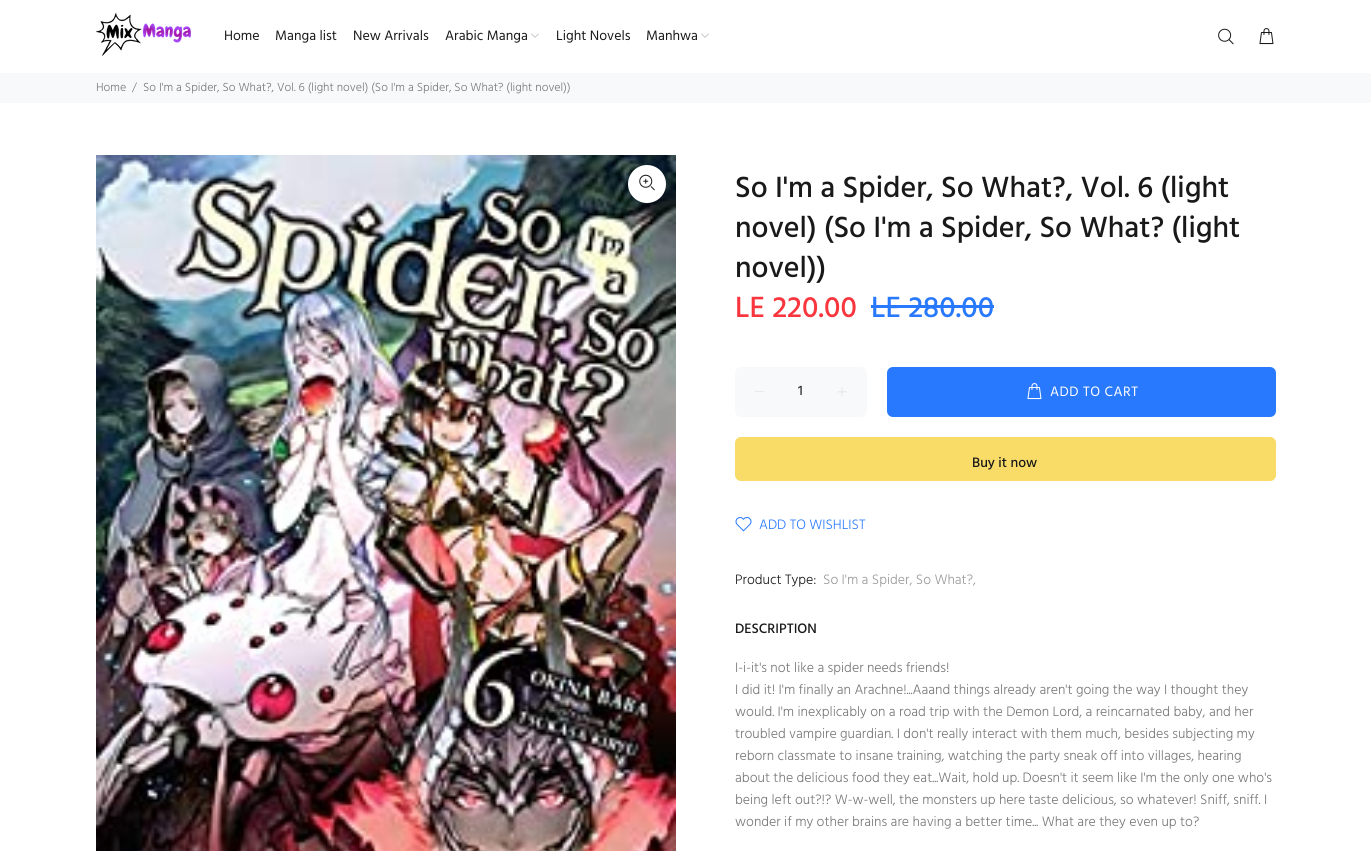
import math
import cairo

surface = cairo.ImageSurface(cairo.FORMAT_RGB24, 1371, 851)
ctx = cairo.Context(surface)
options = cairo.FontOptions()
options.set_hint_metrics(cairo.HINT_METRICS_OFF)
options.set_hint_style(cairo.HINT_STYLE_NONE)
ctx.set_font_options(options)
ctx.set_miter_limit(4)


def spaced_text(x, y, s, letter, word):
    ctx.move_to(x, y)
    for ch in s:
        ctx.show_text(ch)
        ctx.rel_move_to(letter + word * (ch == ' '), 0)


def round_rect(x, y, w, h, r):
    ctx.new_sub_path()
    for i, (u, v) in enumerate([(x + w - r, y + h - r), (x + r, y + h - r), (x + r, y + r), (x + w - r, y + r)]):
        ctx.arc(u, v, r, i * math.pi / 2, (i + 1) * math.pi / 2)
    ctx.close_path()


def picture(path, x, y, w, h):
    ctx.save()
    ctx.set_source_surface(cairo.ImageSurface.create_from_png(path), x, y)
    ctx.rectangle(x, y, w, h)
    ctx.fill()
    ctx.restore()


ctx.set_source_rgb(1, 1, 1)
ctx.paint()
picture("img1.png", 96, 13, 95, 43)
ctx.select_font_face("Hind")
ctx.set_font_size(14)
ctx.set_source_rgb(0.098, 0.098, 0.098)
ctx.move_to(224, 40)
ctx.show_text("Home")
ctx.move_to(275, 40)
ctx.show_text("Manga list")
ctx.move_to(353, 40)
ctx.show_text("New Arrivals")
ctx.move_to(445, 40)
ctx.show_text("Arabic Manga")
picture("img2.png", 531, 33, 8, 5)
ctx.move_to(556, 40)
ctx.show_text("Light Novels")
ctx.move_to(646, 40)
ctx.show_text("Manhwa")
picture("img2.png", 701, 33, 8, 5)
picture("img3.png", 1218, 28, 16, 17)
picture("img4.png", 1259, 28, 15, 17)
ctx.set_source_rgb(0.969, 0.973, 0.98)
ctx.rectangle(0, 73, 1371, 30)
ctx.fill()
ctx.select_font_face("Hind Light")
ctx.set_font_size(12)
ctx.set_source_rgb(0.467, 0.467, 0.467)
ctx.move_to(96, 91)
ctx.show_text("Home")
ctx.move_to(132, 91)
ctx.show_text("/")
ctx.move_to(143, 91)
ctx.show_text("So I'm a Spider, So What?, Vol. 6 (light novel) (So I'm a Spider, So What? (light novel))")
picture("img5.png", 96, 155, 580, 696)
ctx.set_source_rgb(1, 1, 1)
ctx.arc(647, 184, 19, 0, 2 * math.pi)
ctx.fill()
picture("img6.png", 639, 174, 16, 17)
ctx.select_font_face("Hind Medium")
ctx.set_font_size(30)
ctx.set_source_rgb(0.098, 0.098, 0.098)
ctx.move_to(735, 197)
ctx.show_text("So I'm a Spider, So What?, Vol. 6 (light")
ctx.move_to(735, 237)
ctx.show_text("novel) (So I'm a Spider, So What? (light")
ctx.move_to(735, 277)
ctx.show_text("novel))")
ctx.set_source_rgb(0.973, 0.208, 0.243)
ctx.move_to(735, 317)
ctx.show_text("LE 220.00")
ctx.set_source_rgb(0.157, 0.475, 0.996)
ctx.move_to(871, 317)
ctx.show_text("LE 280.00")
ctx.rectangle(871, 305, 123, 3)
ctx.fill()
ctx.set_source_rgb(0.969, 0.973, 0.98)
round_rect(735, 367, 132, 50, 6)
ctx.fill()
ctx.set_source_rgb(0.847, 0.847, 0.847)
ctx.new_path()
ctx.move_to(763.5, 391.5)
ctx.line_to(763.5, 392)
ctx.line_to(754.5, 392)
ctx.line_to(755, 391.5)
ctx.close_path()
ctx.fill()
ctx.set_font_size(14)
ctx.set_source_rgb(0.2, 0.2, 0.2)
ctx.move_to(798, 395)
ctx.show_text("1")
picture("img7.png", 837, 387, 10, 9)
ctx.set_source_rgb(0.157, 0.475, 0.996)
round_rect(887, 367, 389, 50, 6)
ctx.fill()
picture("img8.png", 1027, 383, 15, 17)
ctx.select_font_face("Hind")
ctx.set_source_rgb(1, 1, 1)
spaced_text(1050, 396, "ADD TO CART", 0.5, 0)
ctx.set_source_rgb(0.973, 0.863, 0.408)
round_rect(735, 437, 541, 44, 6)
ctx.fill()
ctx.select_font_face("Hind Medium")
ctx.set_source_rgb(0.098, 0.098, 0.098)
ctx.move_to(972, 467)
ctx.show_text("Buy it now")
picture("img9.png", 735, 517, 17, 15)
ctx.select_font_face("Hind Light")
ctx.set_source_rgb(0.157, 0.475, 0.996)
ctx.move_to(759, 529)
ctx.show_text("ADD TO WISHLIST")
ctx.set_source_rgb(0.098, 0.098, 0.098)
ctx.move_to(735, 584)
ctx.show_text("Product Type:")
ctx.set_source_rgb(0.6, 0.6, 0.6)
ctx.move_to(823, 584)
ctx.show_text("So I'm a Spider, So What?,")
ctx.select_font_face("Hind Medium")
ctx.set_source_rgb(0.098, 0.098, 0.098)
ctx.move_to(735, 633)
ctx.show_text("DESCRIPTION")
ctx.select_font_face("Hind Light")
ctx.set_source_rgb(0.467, 0.467, 0.467)
ctx.move_to(735, 672)
ctx.show_text("I-i-it's not like a spider needs friends!")
ctx.move_to(735, 694)
ctx.show_text("I did it! I'm finally an Arachne!...Aaand things already aren't going the way I thought they")
ctx.move_to(735, 716)
ctx.show_text("would. I'm inexplicably on a road trip with the Demon Lord, a reincarnated baby, and her")
ctx.move_to(735, 738)
ctx.show_text("troubled vampire guardian. I don't really interact with them much, besides subjecting my")
ctx.move_to(735, 760)
ctx.show_text("reborn classmate to insane training, watching the party sneak off into villages, hearing")
ctx.move_to(735, 782)
ctx.show_text("about the delicious food they eat...Wait, hold up. Doesn't it seem like I'm the only one who's")
ctx.move_to(735, 804)
ctx.show_text("being left out?!? W-w-well, the monsters up here taste delicious, so whatever! Sniff, sniff. I")
ctx.move_to(735, 826)
ctx.show_text("wonder if my other brains are having a better time... What are they even up to?")
surface.write_to_png("page.png")
